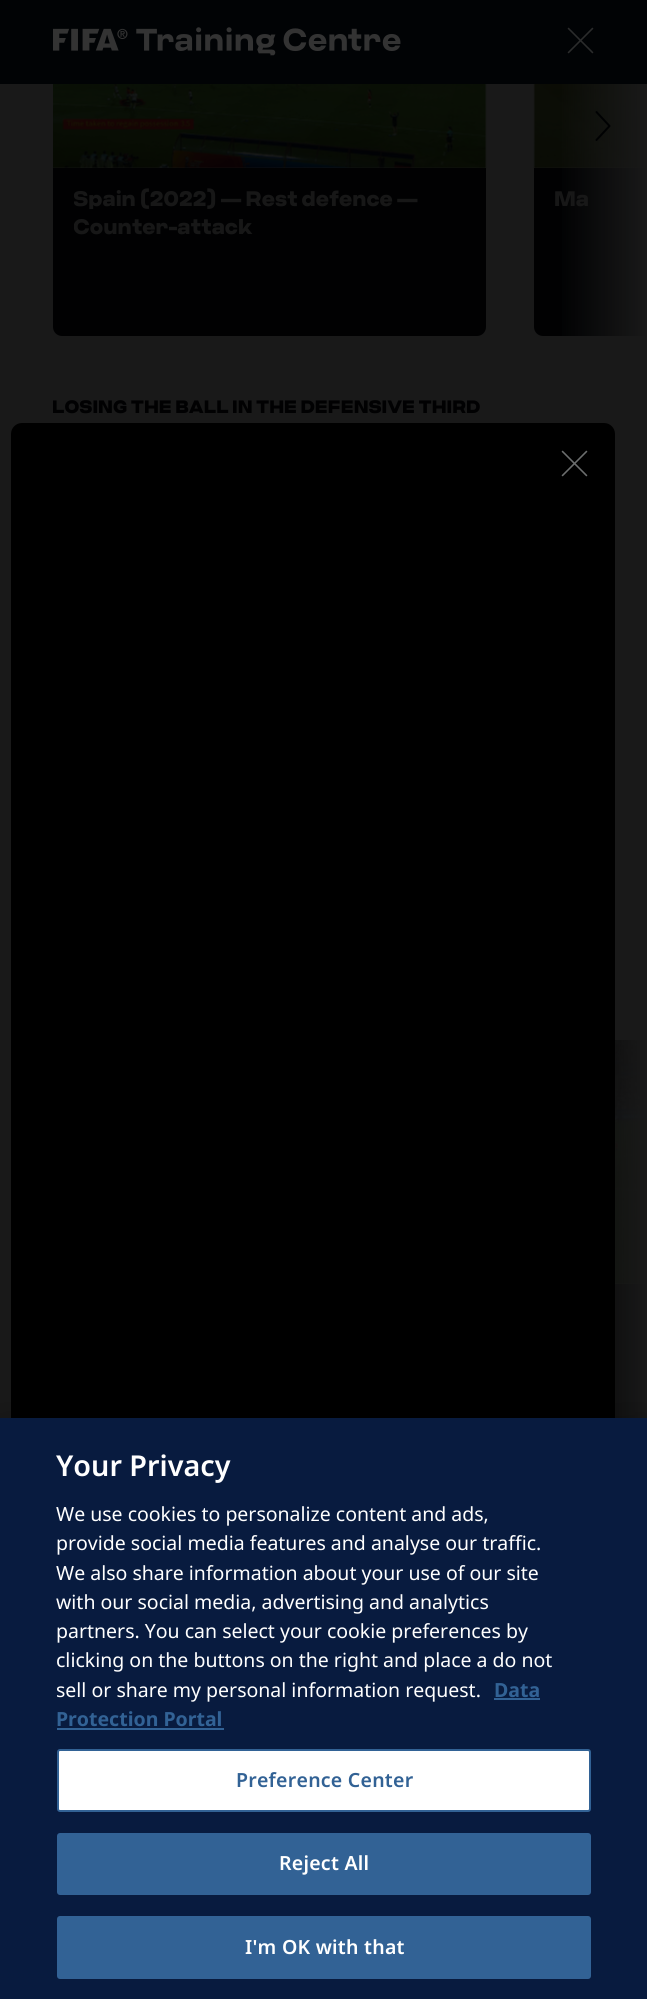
import math
import cairo

surface = cairo.ImageSurface(cairo.FORMAT_RGB24, 647, 1999)
ctx = cairo.Context(surface)
options = cairo.FontOptions()
options.set_hint_metrics(cairo.HINT_METRICS_OFF)
options.set_hint_style(cairo.HINT_STYLE_NONE)
ctx.set_font_options(options)
ctx.set_miter_limit(4)


def spaced_text(x, y, s, letter, word):
    ctx.move_to(x, y)
    for ch in s:
        ctx.show_text(ch)
        ctx.rel_move_to(letter + word * (ch == ' '), 0)


def round_rect(x, y, w, h, r):
    ctx.new_sub_path()
    for i, (u, v) in enumerate([(x + w - r, y + h - r), (x + r, y + h - r), (x + r, y + r), (x + w - r, y + r)]):
        ctx.arc(u, v, r, i * math.pi / 2, (i + 1) * math.pi / 2)
    ctx.close_path()


def shadow(x, y, w, h, r, blur, alpha):
    ctx.push_group_with_content(cairo.CONTENT_ALPHA)
    ctx.set_operator(cairo.OPERATOR_SOURCE)
    for i in range(15, -16, -2):
        e = blur * i / 6
        if min(w, h) + 2 * e > 0:
            ctx.set_source_rgba(0, 0, 0, alpha * math.erfc((i - 1) / 8.5) / 2)
            round_rect(x - e, y - e, w + 2 * e, h + 2 * e, max(0, min(r + e + blur * .6, min(w, h) / 2 + e)))
            ctx.fill()
    ctx.mask(ctx.pop_group())


def picture(path, x, y, w, h):
    ctx.save()
    ctx.set_source_surface(cairo.ImageSurface.create_from_png(path), x, y)
    ctx.rectangle(x, y, w, h)
    ctx.fill()
    ctx.restore()


ctx.set_source_rgb(0.2, 0.2, 0.2)
ctx.paint()
ctx.set_source_rgb(0.004, 0.012, 0.02)
ctx.rectangle(0, 0, 647, 84)
ctx.fill()
picture("img1.png", 53, 27, 348, 29)
picture("img2.png", 567, 27, 27, 27)
picture("img3.png", 53, 84, 434, 85)
ctx.set_source_rgb(0.008, 0.012, 0.02)
ctx.new_path()
ctx.move_to(53, 168)
ctx.line_to(486, 168)
ctx.line_to(486, 327)
ctx.curve_to(486, 332, 482, 336, 477, 336)
ctx.line_to(62, 336)
ctx.curve_to(57, 336, 53, 332, 53, 327)
ctx.close_path()
ctx.fill()
ctx.save()
ctx.rectangle(74, 185, 391, 57)
ctx.clip()
ctx.select_font_face("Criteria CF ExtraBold")
ctx.set_font_size(21)
ctx.set_source_rgb(0.184, 0.184, 0.184)
ctx.move_to(73, 206)
ctx.show_text("Spain (2022) — Rest defence —")
ctx.move_to(73, 234)
ctx.show_text("Counter-attack")
ctx.restore()
picture("img4.png", 533, 84, 114, 85)
ctx.new_path()
ctx.move_to(534, 168)
ctx.line_to(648, 168)
ctx.line_to(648, 336)
ctx.line_to(543, 336)
ctx.curve_to(538, 336, 534, 332, 534, 327)
ctx.close_path()
ctx.fill()
ctx.select_font_face("Criteria CF ExtraBold")
ctx.set_font_size(21)
ctx.set_source_rgb(0.184, 0.184, 0.184)
ctx.move_to(554, 206)
ctx.show_text("Ma")
gradient = cairo.LinearGradient(558, 134, 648, 134)
gradient.add_color_stop_rgba(0, 0.2, 0.2, 0.2, 0)
gradient.add_color_stop_rgba(1, 0.2, 0.2, 0.2, 1)
ctx.set_source(gradient)
ctx.rectangle(562, 84, 85, 252)
ctx.fill()
picture("img5.png", 595, 111, 16, 30)
ctx.select_font_face("Criteria CF Black")
ctx.set_font_size(18)
ctx.set_source_rgb(0.008, 0.012, 0.02)
ctx.move_to(52, 413)
ctx.show_text("LOSING THE BALL IN THE DEFENSIVE THIRD")
picture("img6.png", 615, 1040, 32, 244)
ctx.rectangle(615, 1284, 32, 134)
ctx.fill()
gradient = cairo.LinearGradient(558, 1250, 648, 1250)
gradient.add_color_stop_rgba(0, 0.2, 0.2, 0.2, 0)
gradient.add_color_stop_rgba(1, 0.2, 0.2, 0.2, 1)
ctx.set_source(gradient)
ctx.rectangle(615, 1040, 32, 378)
ctx.fill()
ctx.set_source_rgba(0, 0, 0, 0.5)
ctx.rectangle(0, 84, 647, 1334)
ctx.fill()
ctx.set_source_rgb(0, 0, 0)
round_rect(11, 423, 604, 1154, 11)
ctx.fill()
picture("img7.png", 561, 450, 27, 27)
ctx.set_source_rgb(0, 0, 0)
shadow(0, 1418, 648, 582, 0, 13.5, 0.2)
ctx.set_source_rgb(0.035, 0.106, 0.247)
ctx.rectangle(0, 1418, 647, 581)
ctx.fill()
ctx.select_font_face("Noto Sans SemiBold")
ctx.set_font_size(28.75)
ctx.set_source_rgb(1, 1, 1)
ctx.move_to(56, 1476)
ctx.show_text("Your Privacy")
ctx.select_font_face("Noto Sans")
ctx.set_font_size(19.5)
ctx.move_to(56, 1521)
ctx.show_text("We use cookies to personalize content and ads,")
ctx.move_to(56, 1550)
ctx.show_text("provide social media features and analyse our traffic.")
ctx.move_to(56, 1580)
ctx.show_text("We also share information about your use of our site")
ctx.move_to(56, 1609)
ctx.show_text("with our social media, advertising and analytics")
ctx.move_to(56, 1638)
ctx.show_text("partners. You can select your cookie preferences by")
ctx.move_to(56, 1667)
ctx.show_text("clicking on the buttons on the right and place a do not")
ctx.move_to(56, 1697)
ctx.show_text("sell or share my personal information request.")
ctx.select_font_face("Noto Sans", cairo.FONT_SLANT_NORMAL, cairo.FONT_WEIGHT_BOLD)
ctx.set_source_rgb(0.196, 0.384, 0.584)
ctx.move_to(494, 1697)
ctx.show_text("Data")
ctx.rectangle(494, 1698, 46, 2)
ctx.fill()
ctx.move_to(56, 1726)
ctx.show_text("Protection Portal")
ctx.rectangle(57, 1728, 167, 2)
ctx.fill()
ctx.set_source_rgb(1, 1, 1)
round_rect(58, 1750, 532, 61, 2)
ctx.fill_preserve()
ctx.set_source_rgb(0.196, 0.384, 0.584)
ctx.stroke()
ctx.select_font_face("Noto Sans SemiBold")
spaced_text(236, 1787, "Preference Center", 0.25, 0)
round_rect(58, 1834, 532, 60, 2)
ctx.fill_preserve()
ctx.stroke()
ctx.set_source_rgb(1, 1, 1)
spaced_text(279, 1870, "Reject All", 0.25, 0)
ctx.set_source_rgb(0.196, 0.384, 0.584)
round_rect(58, 1917, 532, 61, 2)
ctx.fill_preserve()
ctx.stroke()
ctx.set_source_rgb(1, 1, 1)
spaced_text(245, 1954, "I'm OK with that", 0.25, 0)
surface.write_to_png("page.png")
